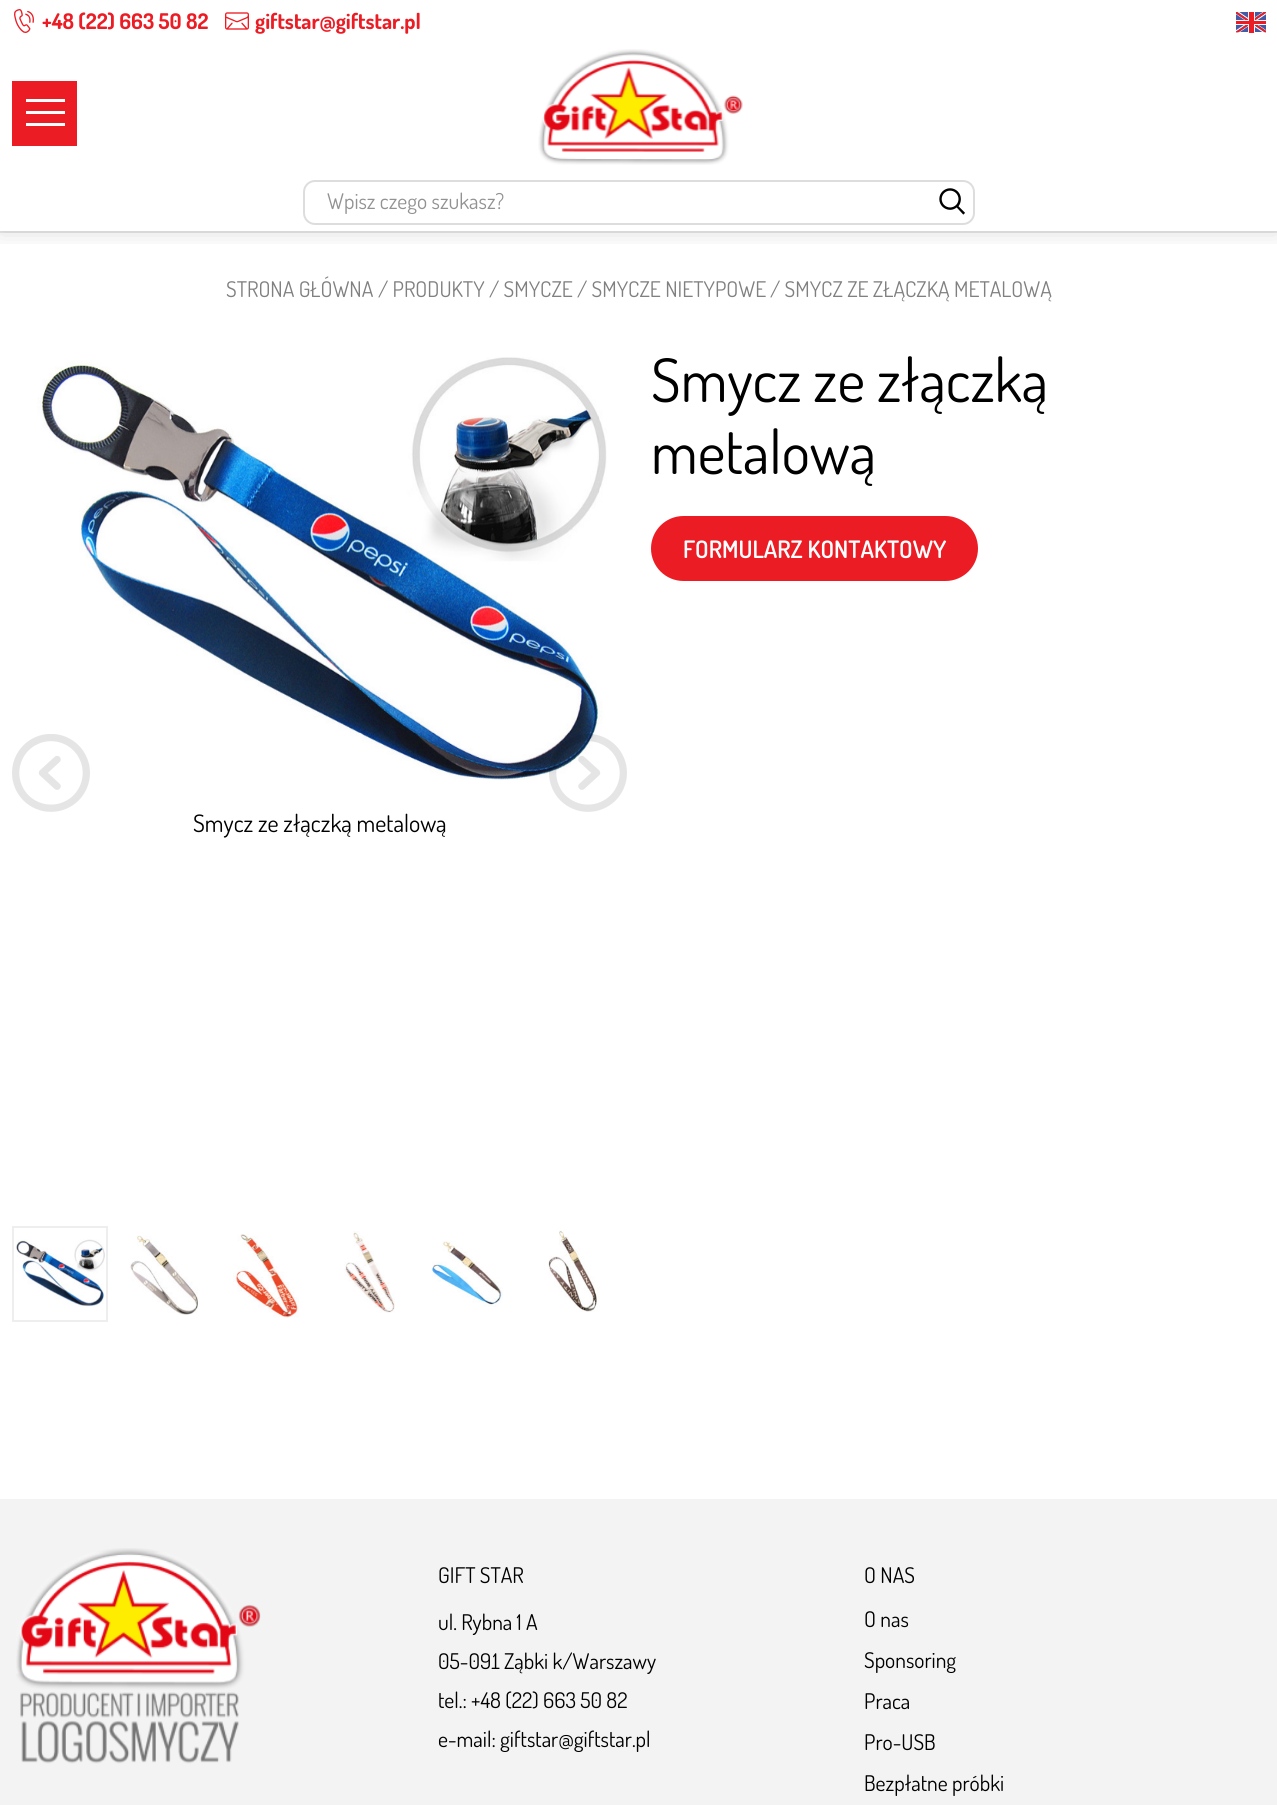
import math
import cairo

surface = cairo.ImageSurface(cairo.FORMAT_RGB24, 1277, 1805)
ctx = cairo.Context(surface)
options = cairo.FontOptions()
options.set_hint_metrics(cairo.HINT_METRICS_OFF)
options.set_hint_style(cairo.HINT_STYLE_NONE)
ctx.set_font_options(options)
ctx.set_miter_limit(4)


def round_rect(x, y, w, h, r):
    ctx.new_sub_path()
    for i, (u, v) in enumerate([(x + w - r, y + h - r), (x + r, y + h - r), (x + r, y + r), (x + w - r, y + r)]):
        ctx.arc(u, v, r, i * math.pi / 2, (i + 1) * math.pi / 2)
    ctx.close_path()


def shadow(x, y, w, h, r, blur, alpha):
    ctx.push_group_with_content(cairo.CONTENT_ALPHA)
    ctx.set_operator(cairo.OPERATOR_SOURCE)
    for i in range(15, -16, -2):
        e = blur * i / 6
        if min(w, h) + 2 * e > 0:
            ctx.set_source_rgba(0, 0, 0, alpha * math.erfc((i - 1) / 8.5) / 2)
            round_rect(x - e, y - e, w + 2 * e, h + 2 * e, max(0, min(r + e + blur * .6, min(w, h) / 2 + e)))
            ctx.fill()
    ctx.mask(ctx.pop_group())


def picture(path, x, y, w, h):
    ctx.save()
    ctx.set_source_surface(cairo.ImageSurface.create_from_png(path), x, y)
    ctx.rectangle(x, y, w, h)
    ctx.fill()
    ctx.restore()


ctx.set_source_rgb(1, 1, 1)
ctx.paint()
ctx.set_source_rgb(0.914, 0.914, 0.914)
ctx.rectangle(0, 231, 1277, 2)
ctx.fill()
ctx.save()
ctx.rectangle(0, 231, 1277, 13)
ctx.clip()
ctx.set_source_rgb(0, 0, 0)
shadow(0, 0, 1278, 231, 0, 12, 0.15)
ctx.restore()
picture("img1.png", 14, 9, 20, 24)
ctx.select_font_face("Dosis", cairo.FONT_SLANT_NORMAL, cairo.FONT_WEIGHT_BOLD)
ctx.set_font_size(21.6)
ctx.set_source_rgb(0.925, 0.11, 0.141)
ctx.move_to(42, 29)
ctx.show_text("+48 (22) 663 50 82")
picture("img2.png", 225, 12, 24, 18)
ctx.move_to(255, 29)
ctx.show_text("giftstar@giftstar.pl")
picture("img3.png", 1236, 12, 30, 21)
ctx.rectangle(12, 81, 65, 65)
ctx.fill()
ctx.set_source_rgb(1, 1, 1)
ctx.rectangle(26, 111, 39, 3)
ctx.fill()
ctx.rectangle(26, 99, 39, 3)
ctx.fill()
ctx.rectangle(26, 123, 39, 3)
ctx.fill()
picture("img4.png", 538, 49, 205, 116)
round_rect(304, 181, 670, 43, 11)
ctx.set_source_rgb(0.867, 0.867, 0.867)
ctx.stroke()
ctx.select_font_face("Dosis")
ctx.set_source_rgb(0.573, 0.573, 0.573)
ctx.move_to(327, 209)
ctx.show_text("Wpisz czego szukasz?")
picture("img5.png", 939, 188, 26, 27)
ctx.set_source_rgb(0.502, 0.502, 0.502)
ctx.move_to(226, 297)
ctx.show_text("STRONA GŁÓWNA")
ctx.move_to(378, 297)
ctx.show_text("/ PRODUKTY")
ctx.move_to(489, 297)
ctx.show_text("/ SMYCZE")
ctx.move_to(577, 297)
ctx.show_text("/ SMYCZE NIETYPOWE")
ctx.move_to(770, 297)
ctx.show_text("/ SMYCZ ZE ZŁĄCZKĄ METALOWĄ")
ctx.set_font_size(60)
ctx.set_source_rgb(0, 0, 0)
ctx.move_to(651, 402)
ctx.show_text("Smycz ze złączką")
ctx.move_to(651, 474)
ctx.show_text("metalową")
ctx.set_source_rgb(0.925, 0.11, 0.141)
round_rect(652, 517, 325, 63, 31.5)
ctx.fill_preserve()
ctx.stroke()
ctx.select_font_face("Dosis SemiBold")
ctx.set_font_size(24)
ctx.set_source_rgb(1, 1, 1)
ctx.move_to(683, 558)
ctx.show_text("FORMULARZ KONTAKTOWY")
picture("img8.png", 37, 357, 570, 423)
picture("img6.png", 12, 734, 78, 78)
picture("img7.png", 549, 734, 78, 78)
ctx.select_font_face("Dosis")
ctx.set_source_rgb(0, 0, 0)
ctx.move_to(193, 832)
ctx.show_text("Smycz ze złączką metalową")
picture("img9.png", 16, 1239, 89, 68)
ctx.rectangle(13, 1227, 94, 94)
ctx.set_source_rgb(0.933, 0.933, 0.933)
ctx.stroke()
picture("img10.png", 130, 1235, 68, 80)
picture("img11.png", 233, 1234, 66, 84)
picture("img12.png", 344, 1231, 51, 82)
picture("img13.png", 432, 1241, 71, 66)
picture("img14.png", 548, 1230, 52, 82)
ctx.set_source_rgb(0.953, 0.953, 0.953)
ctx.rectangle(0, 1499, 1277, 306)
ctx.fill()
picture("img15.png", 16, 1548, 245, 216)
ctx.set_font_size(21.6)
ctx.set_source_rgb(0, 0, 0)
ctx.move_to(438, 1583)
ctx.show_text("GIFT STAR")
ctx.move_to(438, 1630)
ctx.show_text("ul. Rybna 1 A")
ctx.select_font_face("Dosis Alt")
ctx.move_to(438, 1669)
ctx.show_text("05-091 Ząbki k/Warszawy")
ctx.select_font_face("Dosis")
ctx.move_to(438, 1708)
ctx.show_text("tel.: +48 (22) 663 50 82")
ctx.move_to(438, 1747)
ctx.show_text("e-mail: giftstar@giftstar.pl")
ctx.move_to(864, 1583)
ctx.show_text("O NAS")
ctx.move_to(864, 1627)
ctx.show_text("O nas")
ctx.move_to(864, 1668)
ctx.show_text("Sponsoring")
ctx.move_to(864, 1709)
ctx.show_text("Praca")
ctx.move_to(864, 1750)
ctx.show_text("Pro-USB")
ctx.move_to(864, 1791)
ctx.show_text("Bezpłatne próbki")
surface.write_to_png("page.png")
